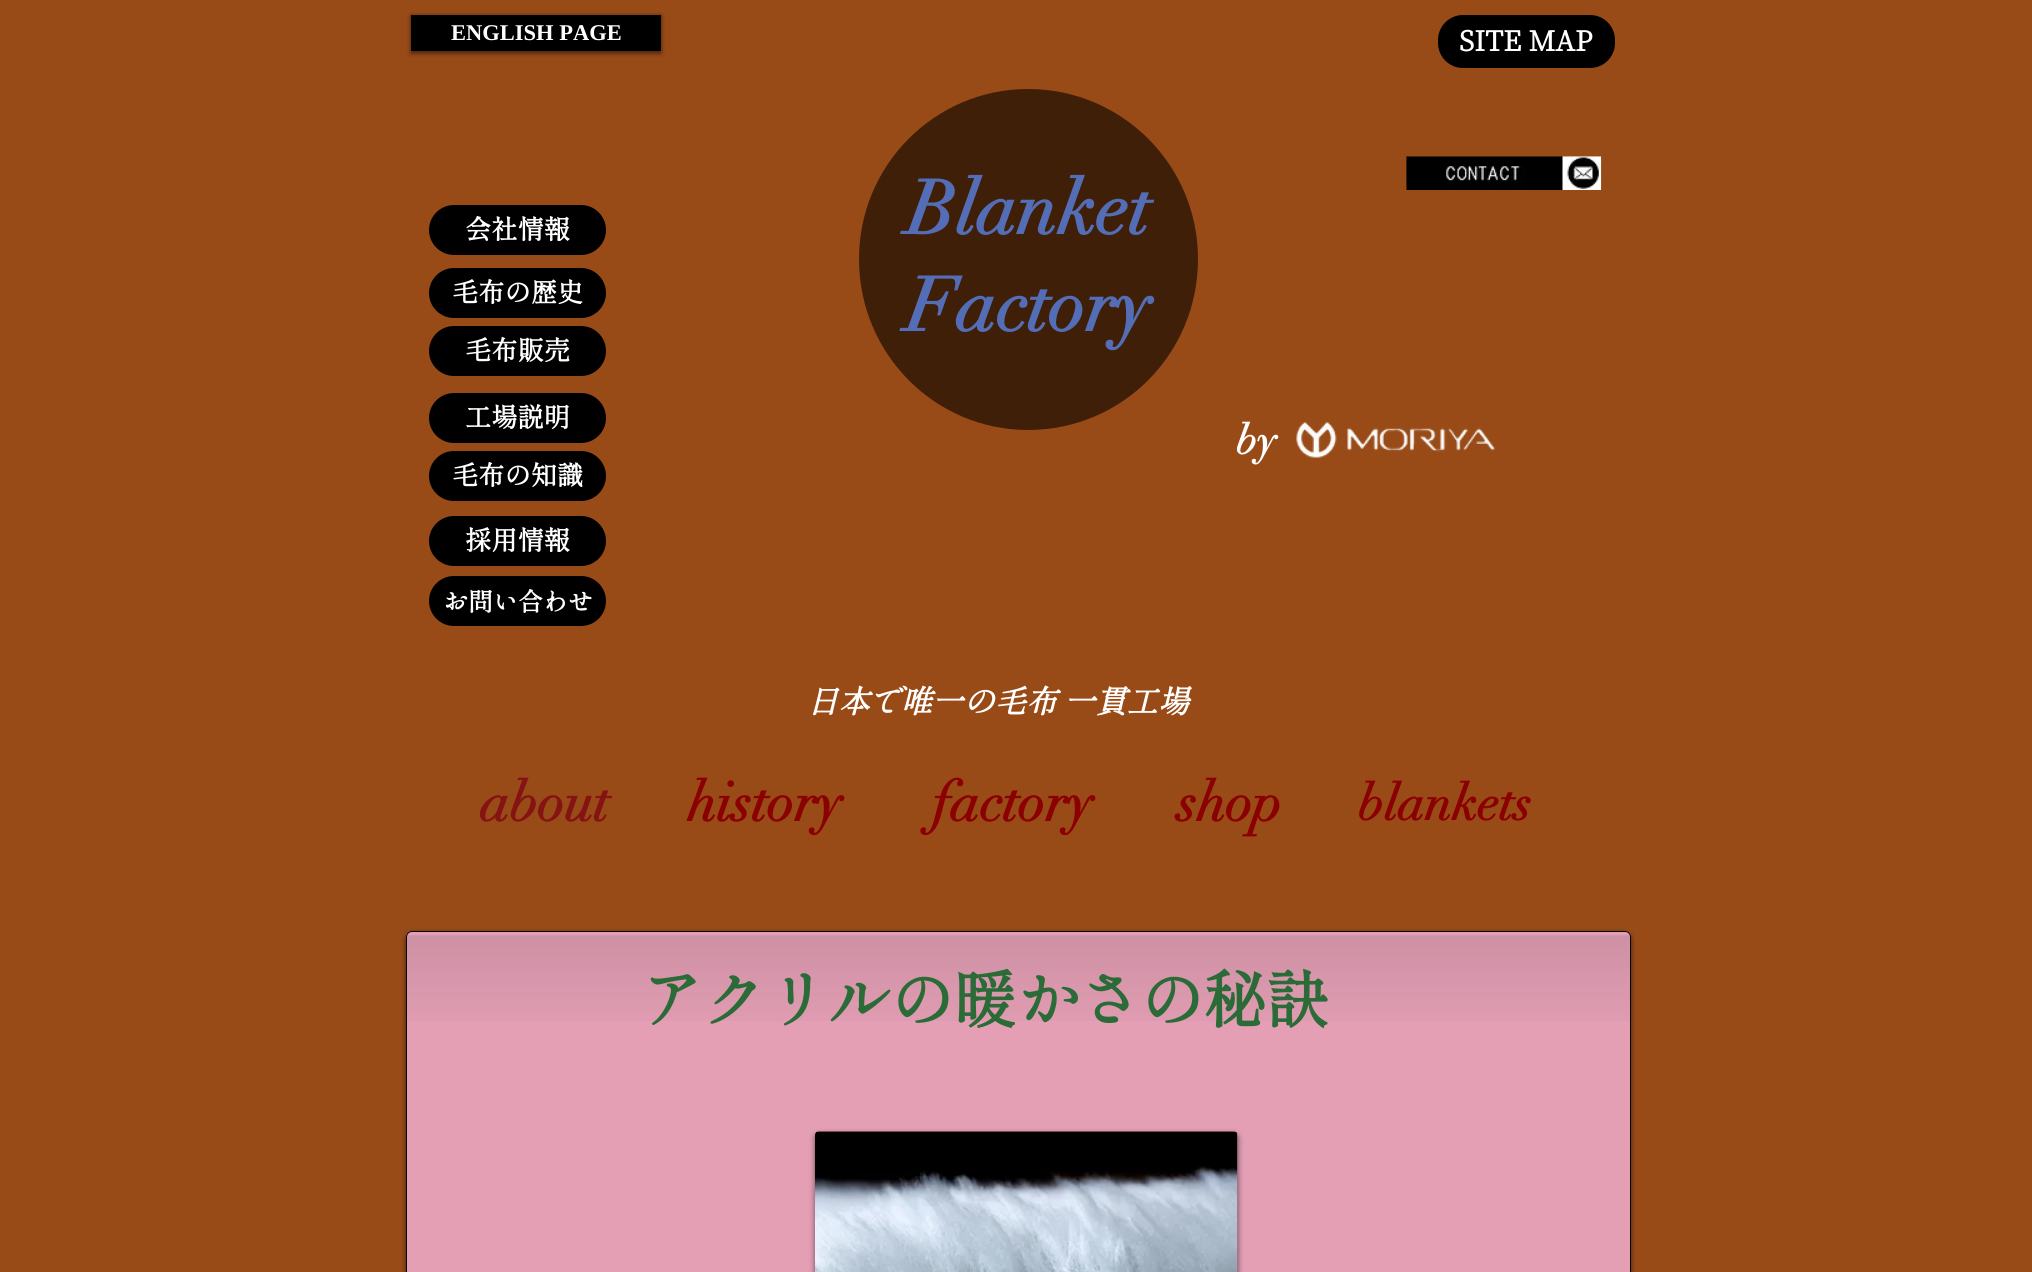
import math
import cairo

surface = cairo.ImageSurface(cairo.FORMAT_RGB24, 2032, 1272)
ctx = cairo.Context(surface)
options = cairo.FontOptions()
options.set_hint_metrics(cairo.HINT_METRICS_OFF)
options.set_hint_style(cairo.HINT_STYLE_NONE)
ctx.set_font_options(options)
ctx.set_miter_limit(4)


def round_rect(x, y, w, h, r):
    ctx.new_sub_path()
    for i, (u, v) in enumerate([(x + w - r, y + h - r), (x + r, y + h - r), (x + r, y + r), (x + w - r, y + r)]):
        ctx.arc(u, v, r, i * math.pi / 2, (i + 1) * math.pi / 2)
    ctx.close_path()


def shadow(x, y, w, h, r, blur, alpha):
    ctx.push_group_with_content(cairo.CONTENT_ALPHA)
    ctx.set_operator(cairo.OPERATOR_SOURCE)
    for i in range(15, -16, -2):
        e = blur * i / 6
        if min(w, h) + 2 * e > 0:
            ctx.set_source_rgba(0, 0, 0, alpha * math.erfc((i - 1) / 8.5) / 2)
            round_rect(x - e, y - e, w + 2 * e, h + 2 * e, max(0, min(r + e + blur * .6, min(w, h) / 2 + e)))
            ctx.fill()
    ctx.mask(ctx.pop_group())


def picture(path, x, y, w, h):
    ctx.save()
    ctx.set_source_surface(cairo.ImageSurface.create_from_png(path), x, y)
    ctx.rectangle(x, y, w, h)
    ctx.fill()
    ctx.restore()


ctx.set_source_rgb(0.6, 0.294, 0.09)
ctx.paint()
ctx.set_source_rgb(0, 0, 0)
shadow(411, 16, 250, 37, 0, 2.5, 0.6)
ctx.set_source_rgb(0, 0, 0)
ctx.rectangle(411, 15, 250, 36)
ctx.fill()
ctx.select_font_face("Liberation Serif", cairo.FONT_SLANT_NORMAL, cairo.FONT_WEIGHT_BOLD)
ctx.set_font_size(22.5)
ctx.set_source_rgb(1, 1, 1)
ctx.move_to(451, 40)
ctx.show_text("ENGLISH PAGE")
ctx.set_source_rgb(0, 0, 0)
round_rect(1438, 15, 177, 53, 25)
ctx.fill()
ctx.select_font_face("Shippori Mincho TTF", cairo.FONT_SLANT_NORMAL, cairo.FONT_WEIGHT_BOLD)
ctx.set_font_size(27.5)
ctx.set_source_rgb(1, 1, 1)
ctx.move_to(1459, 51)
ctx.show_text("SITE MAP")
ctx.set_source_rgb(0.251, 0.122, 0.039)
ctx.new_path()
ctx.move_to(1198, 259)
ctx.curve_to(1198, 354, 1122, 430, 1028, 430)
ctx.curve_to(935, 430, 859, 354, 859, 259)
ctx.curve_to(859, 165, 935, 89, 1028, 89)
ctx.curve_to(1122, 89, 1198, 165, 1198, 259)
ctx.close_path()
ctx.fill()
picture("img1.png", 1406, 156, 196, 34)
ctx.set_source_rgb(0, 0, 0)
round_rect(429, 205, 177, 50, 25)
ctx.fill()
ctx.set_font_size(26.25)
ctx.set_source_rgb(1, 1, 1)
ctx.move_to(465, 239)
ctx.show_text("会社情報")
ctx.set_source_rgb(0, 0, 0)
round_rect(429, 268, 177, 50, 25)
ctx.fill()
ctx.set_source_rgb(1, 1, 1)
ctx.move_to(452, 302)
ctx.show_text("毛布の歴史")
ctx.set_source_rgb(0, 0, 0)
round_rect(429, 326, 177, 50, 25)
ctx.fill()
ctx.set_source_rgb(1, 1, 1)
ctx.move_to(465, 360)
ctx.show_text("毛布販売")
ctx.set_source_rgb(0, 0, 0)
round_rect(429, 451, 177, 50, 25)
ctx.fill()
ctx.set_source_rgb(1, 1, 1)
ctx.move_to(452, 485)
ctx.show_text("毛布の知識")
ctx.set_source_rgb(0, 0, 0)
round_rect(429, 516, 177, 50, 25)
ctx.fill()
ctx.set_source_rgb(1, 1, 1)
ctx.move_to(465, 550)
ctx.show_text("採用情報")
ctx.set_source_rgb(0, 0, 0)
round_rect(429, 576, 177, 50, 25)
ctx.fill()
ctx.set_font_size(25)
ctx.set_source_rgb(1, 1, 1)
ctx.move_to(443, 611)
ctx.show_text("お問い合わせ")
ctx.select_font_face("didot", cairo.FONT_SLANT_NORMAL, cairo.FONT_WEIGHT_BOLD)
ctx.set_font_size(75)
ctx.set_source_rgb(0.325, 0.431, 0.718)
ctx.move_to(907, 234)
ctx.show_text("Blanket")
ctx.move_to(906, 331)
ctx.show_text("Factory")
ctx.set_source_rgb(0, 0, 0)
round_rect(429, 393, 177, 50, 25)
ctx.fill()
ctx.select_font_face("Shippori Mincho TTF", cairo.FONT_SLANT_NORMAL, cairo.FONT_WEIGHT_BOLD)
ctx.set_font_size(26.25)
ctx.set_source_rgb(1, 1, 1)
ctx.move_to(465, 427)
ctx.show_text("工場説明")
ctx.select_font_face("didot", cairo.FONT_SLANT_NORMAL, cairo.FONT_WEIGHT_BOLD)
ctx.set_font_size(41)
ctx.move_to(1236, 454)
ctx.show_text("by")
picture("img2.png", 1296, 422, 200, 36)
ctx.select_font_face("Shippori Mincho TTF", cairo.FONT_SLANT_ITALIC, cairo.FONT_WEIGHT_BOLD)
ctx.set_font_size(31.25)
ctx.move_to(807, 713)
ctx.show_text("日本で唯一の毛布")
ctx.move_to(1064, 713)
ctx.show_text("一貫工場")
ctx.select_font_face("didot", cairo.FONT_SLANT_NORMAL, cairo.FONT_WEIGHT_BOLD)
ctx.set_font_size(55)
ctx.set_source_rgb(0.522, 0.075, 0.075)
ctx.move_to(480, 821)
ctx.show_text("about")
ctx.set_source_rgb(0.545, 0, 0)
ctx.move_to(687, 821)
ctx.show_text("history")
ctx.move_to(932, 821)
ctx.show_text("factory")
ctx.move_to(1177, 821)
ctx.show_text("shop")
ctx.set_font_size(50)
ctx.move_to(1358, 820)
ctx.show_text("blankets")
ctx.save()
ctx.set_fill_rule(cairo.FILL_RULE_EVEN_ODD)
ctx.new_path()
ctx.move_to(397, 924)
ctx.line_to(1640, 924)
ctx.line_to(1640, 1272)
ctx.line_to(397, 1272)
ctx.close_path()
ctx.move_to(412, 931)
ctx.line_to(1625, 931)
ctx.curve_to(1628.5, 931, 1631, 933.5, 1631, 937)
ctx.line_to(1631, 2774)
ctx.curve_to(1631, 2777.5, 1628.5, 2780, 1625, 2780)
ctx.line_to(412, 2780)
ctx.curve_to(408.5, 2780, 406, 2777.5, 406, 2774)
ctx.line_to(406, 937)
ctx.curve_to(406, 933.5, 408.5, 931, 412, 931)
ctx.close_path()
ctx.clip()
ctx.set_source_rgb(0, 0, 0)
shadow(406, 933, 1225, 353, 6, 2.5, 0.6)
ctx.restore()
ctx.set_source_rgba(0.922, 0.655, 0.769, 0.91)
round_rect(406, 931, 1225, 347, 6)
ctx.fill()
picture("img3.png", 406, 935, 1225, 86)
round_rect(406.5, 931.5, 1224, 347, 5.5)
ctx.set_source_rgb(0, 0, 0)
ctx.set_line_width(1)
ctx.stroke()
ctx.select_font_face("Shippori Mincho TTF", cairo.FONT_SLANT_NORMAL, cairo.FONT_WEIGHT_BOLD)
ctx.set_font_size(62.5)
ctx.set_source_rgb(0.165, 0.42, 0.216)
ctx.move_to(641, 1023)
ctx.show_text("アクリルの暖かさの秘訣")
ctx.set_source_rgb(0, 0, 0)
shadow(815, 1134, 423, 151, 4, 3, 0.53)
picture("img4.png", 815, 1131, 423, 141)
surface.write_to_png("page.png")
